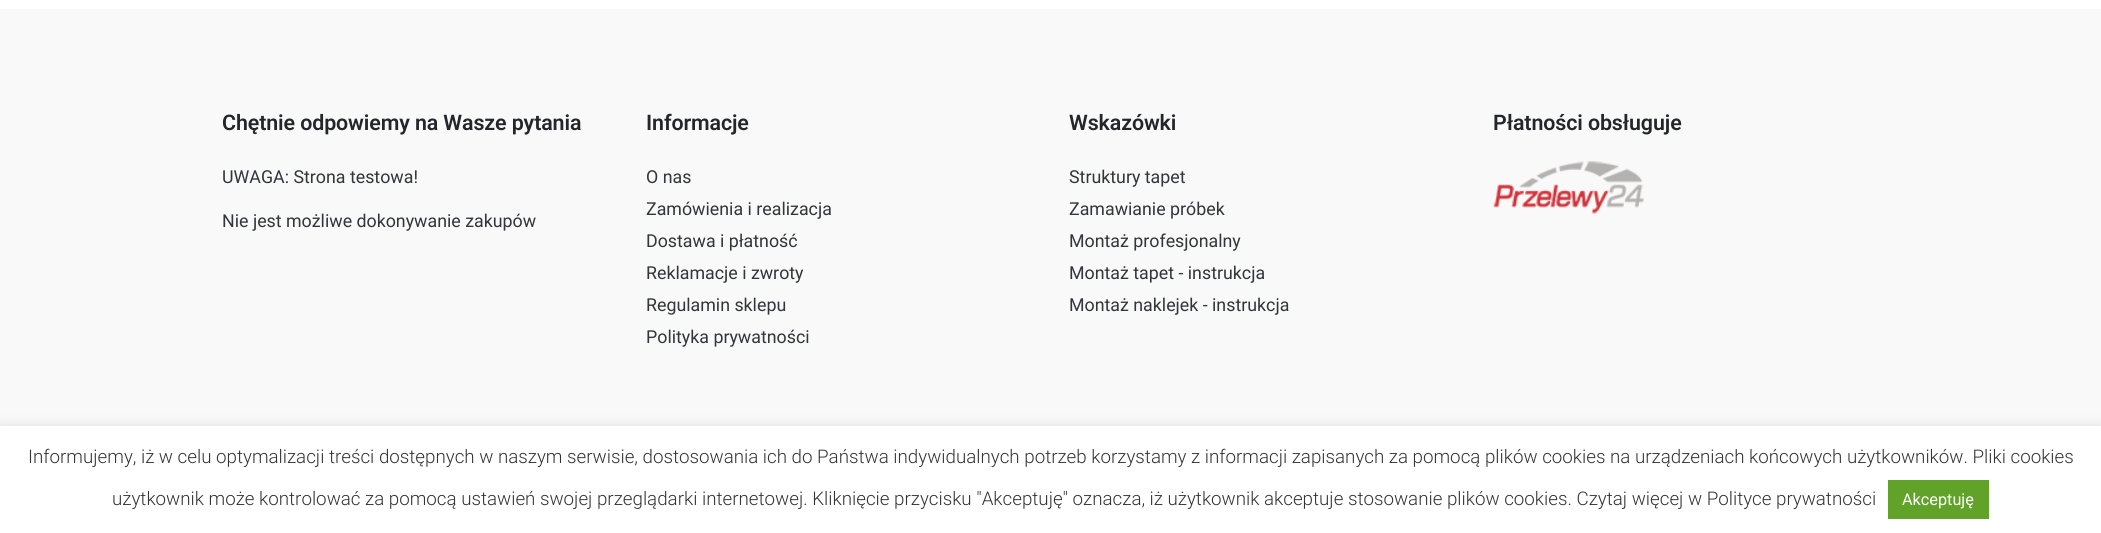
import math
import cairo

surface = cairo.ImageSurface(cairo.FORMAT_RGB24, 2101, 533)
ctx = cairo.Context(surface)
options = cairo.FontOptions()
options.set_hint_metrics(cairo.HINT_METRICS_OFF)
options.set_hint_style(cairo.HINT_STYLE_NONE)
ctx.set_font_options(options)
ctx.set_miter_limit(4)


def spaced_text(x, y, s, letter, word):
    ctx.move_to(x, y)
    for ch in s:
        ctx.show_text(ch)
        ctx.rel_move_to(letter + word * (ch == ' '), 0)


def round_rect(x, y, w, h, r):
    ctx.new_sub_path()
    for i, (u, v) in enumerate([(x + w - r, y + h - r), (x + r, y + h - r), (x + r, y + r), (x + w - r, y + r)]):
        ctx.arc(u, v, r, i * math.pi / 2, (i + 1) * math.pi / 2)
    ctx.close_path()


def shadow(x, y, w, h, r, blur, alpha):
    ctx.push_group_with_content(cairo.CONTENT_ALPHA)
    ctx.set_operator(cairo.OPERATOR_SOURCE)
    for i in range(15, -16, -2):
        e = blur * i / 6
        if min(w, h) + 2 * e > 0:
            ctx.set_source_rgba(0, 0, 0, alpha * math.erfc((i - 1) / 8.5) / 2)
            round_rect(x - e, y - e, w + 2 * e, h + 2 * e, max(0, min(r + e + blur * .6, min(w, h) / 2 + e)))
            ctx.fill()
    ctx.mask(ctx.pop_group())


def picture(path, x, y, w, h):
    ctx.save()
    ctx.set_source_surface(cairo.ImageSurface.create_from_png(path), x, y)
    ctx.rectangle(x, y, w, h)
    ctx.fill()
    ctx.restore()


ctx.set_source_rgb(0.976, 0.976, 0.976)
ctx.paint()
ctx.set_source_rgb(1, 1, 1)
ctx.rectangle(0, 0, 2101, 9)
ctx.fill()
ctx.select_font_face("Roboto SemiBold")
ctx.set_font_size(21.4)
ctx.set_source_rgb(0.141, 0.149, 0.169)
spaced_text(222, 130, "Chętnie odpowiemy na Wasze pytania", -0.1, 0)
ctx.select_font_face("Roboto")
ctx.set_font_size(17.8)
ctx.set_source_rgb(0.196, 0.208, 0.235)
ctx.move_to(222, 183)
ctx.show_text("UWAGA: Strona testowa!")
ctx.move_to(222, 227)
ctx.show_text("Nie jest możliwe dokonywanie zakupów")
ctx.select_font_face("Roboto SemiBold")
ctx.set_font_size(21.4)
ctx.set_source_rgb(0.141, 0.149, 0.169)
spaced_text(646, 130, "Informacje", -0.1, 0)
ctx.select_font_face("Roboto")
ctx.set_font_size(17.8)
ctx.set_source_rgb(0.196, 0.208, 0.235)
ctx.move_to(646, 183)
ctx.show_text("O nas")
ctx.move_to(646, 215)
ctx.show_text("Zamówienia i realizacja")
ctx.move_to(646, 247)
ctx.show_text("Dostawa i płatność")
ctx.move_to(646, 279)
ctx.show_text("Reklamacje i zwroty")
ctx.move_to(646, 311)
ctx.show_text("Regulamin sklepu")
ctx.move_to(646, 343)
ctx.show_text("Polityka prywatności")
ctx.select_font_face("Roboto SemiBold")
ctx.set_font_size(21.4)
ctx.set_source_rgb(0.141, 0.149, 0.169)
spaced_text(1069, 130, "Wskazówki", -0.1, 0)
ctx.select_font_face("Roboto")
ctx.set_font_size(17.8)
ctx.set_source_rgb(0.196, 0.208, 0.235)
ctx.move_to(1069, 183)
ctx.show_text("Struktury tapet")
ctx.move_to(1069, 215)
ctx.show_text("Zamawianie próbek")
ctx.move_to(1069, 247)
ctx.show_text("Montaż profesjonalny")
ctx.move_to(1069, 279)
ctx.show_text("Montaż tapet - instrukcja")
ctx.move_to(1069, 311)
ctx.show_text("Montaż naklejek - instrukcja")
ctx.select_font_face("Roboto SemiBold")
ctx.set_font_size(21.4)
ctx.set_source_rgb(0.141, 0.149, 0.169)
spaced_text(1493, 130, "Płatności obsługuje", -0.1, 0)
picture("img1.png", 1493, 161, 151, 53)
ctx.set_source_rgb(0.675, 0.671, 0.671)
shadow(0, 425, 2101, 108, 0, 6, 0.3)
ctx.set_source_rgb(1, 1, 1)
ctx.rectangle(0, 426, 2101, 107)
ctx.fill()
ctx.select_font_face("Roboto Light")
ctx.set_font_size(18.75)
ctx.set_source_rgb(0.2, 0.2, 0.2)
ctx.move_to(28, 463)
ctx.show_text("Informujemy, iż w celu optymalizacji treści dostępnych w naszym serwisie, dostosowania ich do Państwa indywidualnych potrzeb korzystamy z informacji zapisanych za pomocą plików cookies na urządzeniach końcowych użytkowników. Pliki cookies")
ctx.move_to(112, 505)
ctx.show_text("użytkownik może kontrolować za pomocą ustawień swojej przeglądarki internetowej. Kliknięcie przycisku \"Akceptuję\" oznacza, iż użytkownik akceptuje stosowanie plików cookies. Czytaj więcej w Polityce prywatności")
ctx.set_source_rgb(0.38, 0.635, 0.161)
ctx.rectangle(1888, 480, 101, 39)
ctx.fill()
ctx.select_font_face("Roboto")
ctx.set_font_size(16.25)
ctx.set_source_rgb(1, 1, 1)
ctx.move_to(1902, 505)
ctx.show_text("Akceptuję")
surface.write_to_png("page.png")
